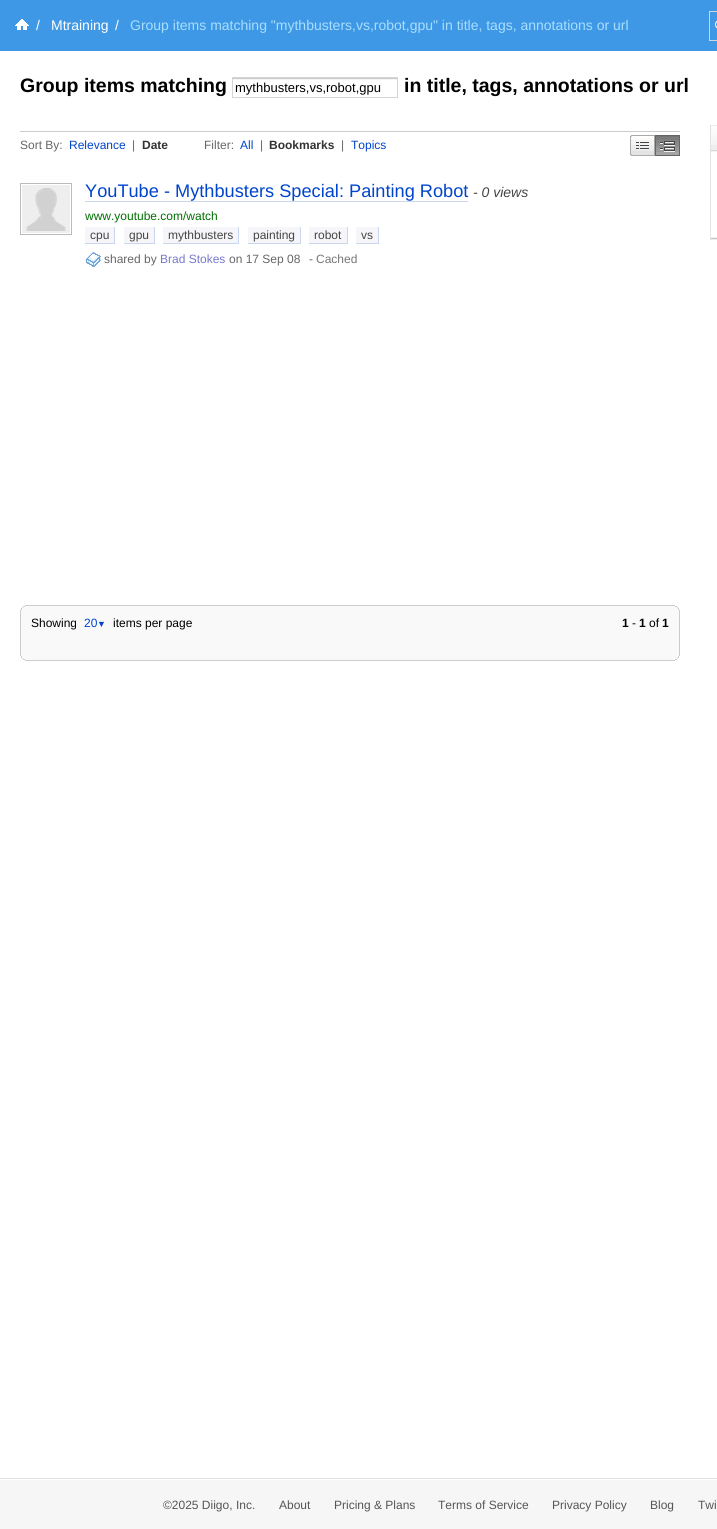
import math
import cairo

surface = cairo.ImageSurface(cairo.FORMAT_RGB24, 717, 1529)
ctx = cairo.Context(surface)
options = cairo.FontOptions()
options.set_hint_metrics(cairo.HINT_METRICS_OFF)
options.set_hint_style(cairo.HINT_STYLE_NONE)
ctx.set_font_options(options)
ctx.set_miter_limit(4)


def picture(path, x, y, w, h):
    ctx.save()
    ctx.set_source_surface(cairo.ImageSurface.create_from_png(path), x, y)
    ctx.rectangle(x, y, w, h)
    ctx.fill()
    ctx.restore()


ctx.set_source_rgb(1, 1, 1)
ctx.paint()
ctx.set_source_rgb(0.247, 0.596, 0.898)
ctx.rectangle(0, 0, 717, 51)
ctx.fill()
picture("img1.png", 15, 19, 14, 11)
ctx.select_font_face("Liberation Sans")
ctx.set_font_size(14)
ctx.set_source_rgb(1, 1, 1)
ctx.move_to(36, 30)
ctx.show_text("/")
ctx.move_to(51, 30)
ctx.show_text("Mtraining")
ctx.move_to(115, 30)
ctx.show_text("/")
ctx.set_source_rgb(0.655, 0.871, 1)
ctx.move_to(130, 30)
ctx.show_text("Group items matching \"mythbusters,vs,robot,gpu\" in title, tags, annotations or url")
picture("img2.png", 715, 20, 2, 9)
ctx.rectangle(709.5, 11.5, 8, 29)
ctx.set_source_rgb(0.835, 0.835, 0.835)
ctx.set_line_width(1)
ctx.stroke()
ctx.select_font_face("Liberation Sans", cairo.FONT_SLANT_NORMAL, cairo.FONT_WEIGHT_BOLD)
ctx.set_font_size(19.5)
ctx.set_source_rgb(0, 0, 0)
ctx.move_to(20, 92)
ctx.show_text("Group items matching")
picture("img3.png", 233, 78, 164, 2)
ctx.rectangle(232.5, 77.5, 165, 20)
ctx.set_source_rgb(0.835, 0.835, 0.835)
ctx.stroke()
ctx.select_font_face("Liberation Sans")
ctx.set_font_size(13)
ctx.set_source_rgb(0, 0, 0)
ctx.move_to(235, 92)
ctx.show_text("mythbusters,vs,robot,gpu")
ctx.select_font_face("Liberation Sans", cairo.FONT_SLANT_NORMAL, cairo.FONT_WEIGHT_BOLD)
ctx.set_font_size(19.5)
ctx.move_to(404, 92)
ctx.show_text("in title, tags, annotations or url")
ctx.set_source_rgb(0.8, 0.8, 0.8)
ctx.rectangle(20, 131, 660, 1)
ctx.fill()
ctx.select_font_face("Liberation Sans")
ctx.set_font_size(12)
ctx.set_source_rgb(0.4, 0.4, 0.4)
ctx.move_to(20, 149)
ctx.show_text("Sort By:")
ctx.set_source_rgb(0, 0.267, 0.8)
ctx.move_to(69, 149)
ctx.show_text("Relevance")
ctx.set_source_rgb(0.4, 0.4, 0.4)
ctx.move_to(132, 149)
ctx.show_text("|")
ctx.select_font_face("Liberation Sans", cairo.FONT_SLANT_NORMAL, cairo.FONT_WEIGHT_BOLD)
ctx.set_source_rgb(0.2, 0.2, 0.2)
ctx.move_to(142, 149)
ctx.show_text("Date")
ctx.select_font_face("Liberation Sans")
ctx.set_source_rgb(0.4, 0.4, 0.4)
ctx.move_to(204, 149)
ctx.show_text("Filter:")
ctx.set_source_rgb(0, 0.267, 0.8)
ctx.move_to(240, 149)
ctx.show_text("All")
ctx.set_source_rgb(0.4, 0.4, 0.4)
ctx.move_to(260, 149)
ctx.show_text("|")
ctx.select_font_face("Liberation Sans", cairo.FONT_SLANT_NORMAL, cairo.FONT_WEIGHT_BOLD)
ctx.set_source_rgb(0.2, 0.2, 0.2)
ctx.move_to(269, 149)
ctx.show_text("Bookmarks")
ctx.select_font_face("Liberation Sans")
ctx.set_source_rgb(0.4, 0.4, 0.4)
ctx.move_to(341, 149)
ctx.show_text("|")
ctx.set_source_rgb(0, 0.267, 0.8)
ctx.move_to(351, 149)
ctx.show_text("Topics")
picture("img4.png", 630, 135, 25, 21)
picture("img5.png", 655, 135, 25, 21)
ctx.rectangle(20.5, 183.5, 51, 51)
ctx.set_source_rgb(0.733, 0.733, 0.733)
ctx.stroke()
picture("img6.png", 22, 185, 48, 48)
ctx.set_font_size(18.2)
ctx.set_source_rgb(0, 0.267, 0.8)
ctx.move_to(85, 197)
ctx.show_text("YouTube - Mythbusters Special: Painting Robot")
ctx.set_source_rgb(0.788, 0.843, 0.945)
ctx.rectangle(85, 201, 383, 1)
ctx.fill()
ctx.select_font_face("Liberation Sans", cairo.FONT_SLANT_ITALIC)
ctx.set_font_size(14)
ctx.set_source_rgb(0.267, 0.267, 0.267)
ctx.move_to(473, 197)
ctx.show_text("- 0 views")
ctx.select_font_face("Liberation Sans")
ctx.set_font_size(12)
ctx.set_source_rgb(0, 0.439, 0)
ctx.move_to(85, 220)
ctx.show_text("www.youtube.com/watch")
ctx.set_source_rgb(0.961, 0.961, 0.98)
ctx.rectangle(85, 227, 29, 16)
ctx.fill()
ctx.set_source_rgb(0.267, 0.267, 0.267)
ctx.move_to(90, 239)
ctx.show_text("cpu")
ctx.set_source_rgb(0.788, 0.843, 0.945)
ctx.rectangle(114, 227, 1, 17)
ctx.fill()
ctx.rectangle(85, 243, 30, 1)
ctx.fill()
ctx.set_source_rgb(0.961, 0.961, 0.98)
ctx.rectangle(124, 227, 30, 16)
ctx.fill()
ctx.set_source_rgb(0.267, 0.267, 0.267)
ctx.move_to(129, 239)
ctx.show_text("gpu")
ctx.set_source_rgb(0.788, 0.843, 0.945)
ctx.rectangle(154, 227, 1, 17)
ctx.fill()
ctx.rectangle(124, 243, 31, 1)
ctx.fill()
ctx.set_source_rgb(0.961, 0.961, 0.98)
ctx.rectangle(163, 227, 75, 16)
ctx.fill()
ctx.set_source_rgb(0.267, 0.267, 0.267)
ctx.move_to(168, 239)
ctx.show_text("mythbusters")
ctx.set_source_rgb(0.788, 0.843, 0.945)
ctx.rectangle(238, 227, 1, 17)
ctx.fill()
ctx.rectangle(163, 243, 76, 1)
ctx.fill()
ctx.set_source_rgb(0.961, 0.961, 0.98)
ctx.rectangle(248, 227, 52, 16)
ctx.fill()
ctx.set_source_rgb(0.267, 0.267, 0.267)
ctx.move_to(253, 239)
ctx.show_text("painting")
ctx.set_source_rgb(0.788, 0.843, 0.945)
ctx.rectangle(300, 227, 1, 17)
ctx.fill()
ctx.rectangle(248, 243, 53, 1)
ctx.fill()
ctx.set_source_rgb(0.961, 0.961, 0.98)
ctx.rectangle(309, 227, 38, 16)
ctx.fill()
ctx.set_source_rgb(0.267, 0.267, 0.267)
ctx.move_to(314, 239)
ctx.show_text("robot")
ctx.set_source_rgb(0.788, 0.843, 0.945)
ctx.rectangle(347, 227, 1, 17)
ctx.fill()
ctx.rectangle(309, 243, 39, 1)
ctx.fill()
ctx.set_source_rgb(0.961, 0.961, 0.98)
ctx.rectangle(356, 227, 22, 16)
ctx.fill()
ctx.set_source_rgb(0.267, 0.267, 0.267)
ctx.move_to(361, 239)
ctx.show_text("vs")
ctx.set_source_rgb(0.788, 0.843, 0.945)
ctx.rectangle(378, 227, 1, 17)
ctx.fill()
ctx.rectangle(356, 243, 23, 1)
ctx.fill()
picture("img7.png", 85, 252, 16, 15)
ctx.set_source_rgb(0.4, 0.4, 0.4)
ctx.move_to(104, 263)
ctx.show_text("shared by")
ctx.set_source_rgb(0.467, 0.467, 0.8)
ctx.move_to(160, 263)
ctx.show_text("Brad Stokes")
ctx.set_source_rgb(0.4, 0.4, 0.4)
ctx.move_to(229, 263)
ctx.show_text("on 17 Sep 08")
ctx.move_to(309, 263)
ctx.show_text("-")
ctx.set_source_rgb(0.467, 0.467, 0.467)
ctx.move_to(316, 263)
ctx.show_text("Cached")
ctx.set_source_rgb(0.8, 0.8, 0.8)
ctx.rectangle(25, 605, 650, 1)
ctx.fill()
ctx.set_source_rgb(0.976, 0.976, 0.976)
ctx.rectangle(23, 606, 654, 1)
ctx.fill()
ctx.set_source_rgb(0.8, 0.8, 0.8)
ctx.rectangle(675, 606, 2, 1)
ctx.fill()
ctx.rectangle(23, 606, 2, 1)
ctx.fill()
ctx.set_source_rgb(0.976, 0.976, 0.976)
ctx.rectangle(22, 607, 656, 1)
ctx.fill()
ctx.set_source_rgb(0.8, 0.8, 0.8)
ctx.rectangle(677, 607, 1, 1)
ctx.fill()
ctx.rectangle(22, 607, 1, 1)
ctx.fill()
ctx.set_source_rgb(0.976, 0.976, 0.976)
ctx.rectangle(21, 608, 658, 50)
ctx.fill()
ctx.set_source_rgb(0.8, 0.8, 0.8)
ctx.rectangle(678, 608, 1, 2)
ctx.fill()
ctx.rectangle(21, 608, 1, 2)
ctx.fill()
ctx.rectangle(679, 610, 1, 46)
ctx.fill()
ctx.rectangle(20, 610, 1, 46)
ctx.fill()
ctx.set_source_rgb(0, 0, 0)
ctx.move_to(31, 627)
ctx.show_text("Showing")
ctx.set_source_rgb(0, 0.267, 0.8)
ctx.move_to(84, 627)
ctx.show_text("20")
ctx.select_font_face("Liberation Sans", cairo.FONT_SLANT_NORMAL, cairo.FONT_WEIGHT_BOLD)
ctx.set_font_size(9)
ctx.move_to(97, 627)
ctx.show_text("▼")
ctx.select_font_face("Liberation Sans")
ctx.set_font_size(12)
ctx.set_source_rgb(0, 0, 0)
ctx.move_to(113, 627)
ctx.show_text("items per page")
ctx.select_font_face("Liberation Sans", cairo.FONT_SLANT_NORMAL, cairo.FONT_WEIGHT_BOLD)
ctx.move_to(622, 627)
ctx.show_text("1")
ctx.select_font_face("Liberation Sans")
ctx.move_to(632, 627)
ctx.show_text("-")
ctx.select_font_face("Liberation Sans", cairo.FONT_SLANT_NORMAL, cairo.FONT_WEIGHT_BOLD)
ctx.move_to(639, 627)
ctx.show_text("1")
ctx.select_font_face("Liberation Sans")
ctx.move_to(649, 627)
ctx.show_text("of")
ctx.select_font_face("Liberation Sans", cairo.FONT_SLANT_NORMAL, cairo.FONT_WEIGHT_BOLD)
ctx.move_to(662, 627)
ctx.show_text("1")
ctx.set_source_rgb(0.8, 0.8, 0.8)
ctx.rectangle(678, 656, 1, 2)
ctx.fill()
ctx.rectangle(21, 656, 1, 2)
ctx.fill()
ctx.set_source_rgb(0.976, 0.976, 0.976)
ctx.rectangle(22, 658, 656, 1)
ctx.fill()
ctx.set_source_rgb(0.8, 0.8, 0.8)
ctx.rectangle(677, 658, 1, 1)
ctx.fill()
ctx.rectangle(22, 658, 1, 1)
ctx.fill()
ctx.set_source_rgb(0.976, 0.976, 0.976)
ctx.rectangle(23, 659, 654, 1)
ctx.fill()
ctx.set_source_rgb(0.8, 0.8, 0.8)
ctx.rectangle(675, 659, 2, 1)
ctx.fill()
ctx.rectangle(23, 659, 2, 1)
ctx.fill()
ctx.rectangle(25, 660, 650, 1)
ctx.fill()
ctx.set_source_rgb(0.933, 0.933, 0.933)
ctx.rectangle(711, 125, 6, 26)
ctx.fill()
picture("img8.png", 711, 126, 6, 19)
ctx.set_source_rgb(0.851, 0.851, 0.851)
ctx.rectangle(710, 150, 7, 1)
ctx.fill()
ctx.set_source_rgb(0.886, 0.886, 0.886)
ctx.rectangle(710, 125, 1, 26)
ctx.fill()
picture("img9.png", 711, 237, 6, 2)
ctx.set_source_rgb(0.953, 0.953, 0.953)
ctx.rectangle(710, 151, 7, 1)
ctx.fill()
ctx.set_source_rgb(0.925, 0.925, 0.925)
ctx.rectangle(710, 239, 7, 1)
ctx.fill()
ctx.set_source_rgb(0.898, 0.898, 0.898)
ctx.rectangle(710, 151, 1, 89)
ctx.fill()
ctx.set_source_rgb(0.961, 0.961, 0.961)
ctx.rectangle(0, 1480, 717, 49)
ctx.fill()
ctx.set_source_rgb(0.89, 0.89, 0.89)
ctx.rectangle(0, 1478, 717, 1)
ctx.fill()
ctx.select_font_face("Liberation Sans")
ctx.set_source_rgb(0.333, 0.333, 0.333)
ctx.move_to(163, 1509)
ctx.show_text("©2025 Diigo, Inc.")
ctx.move_to(279, 1509)
ctx.show_text("About")
ctx.move_to(334, 1509)
ctx.show_text("Pricing & Plans")
ctx.move_to(438, 1509)
ctx.show_text("Terms of Service")
ctx.move_to(552, 1509)
ctx.show_text("Privacy Policy")
ctx.move_to(650, 1509)
ctx.show_text("Blog")
ctx.move_to(698, 1509)
ctx.show_text("Twi")
surface.write_to_png("page.png")
